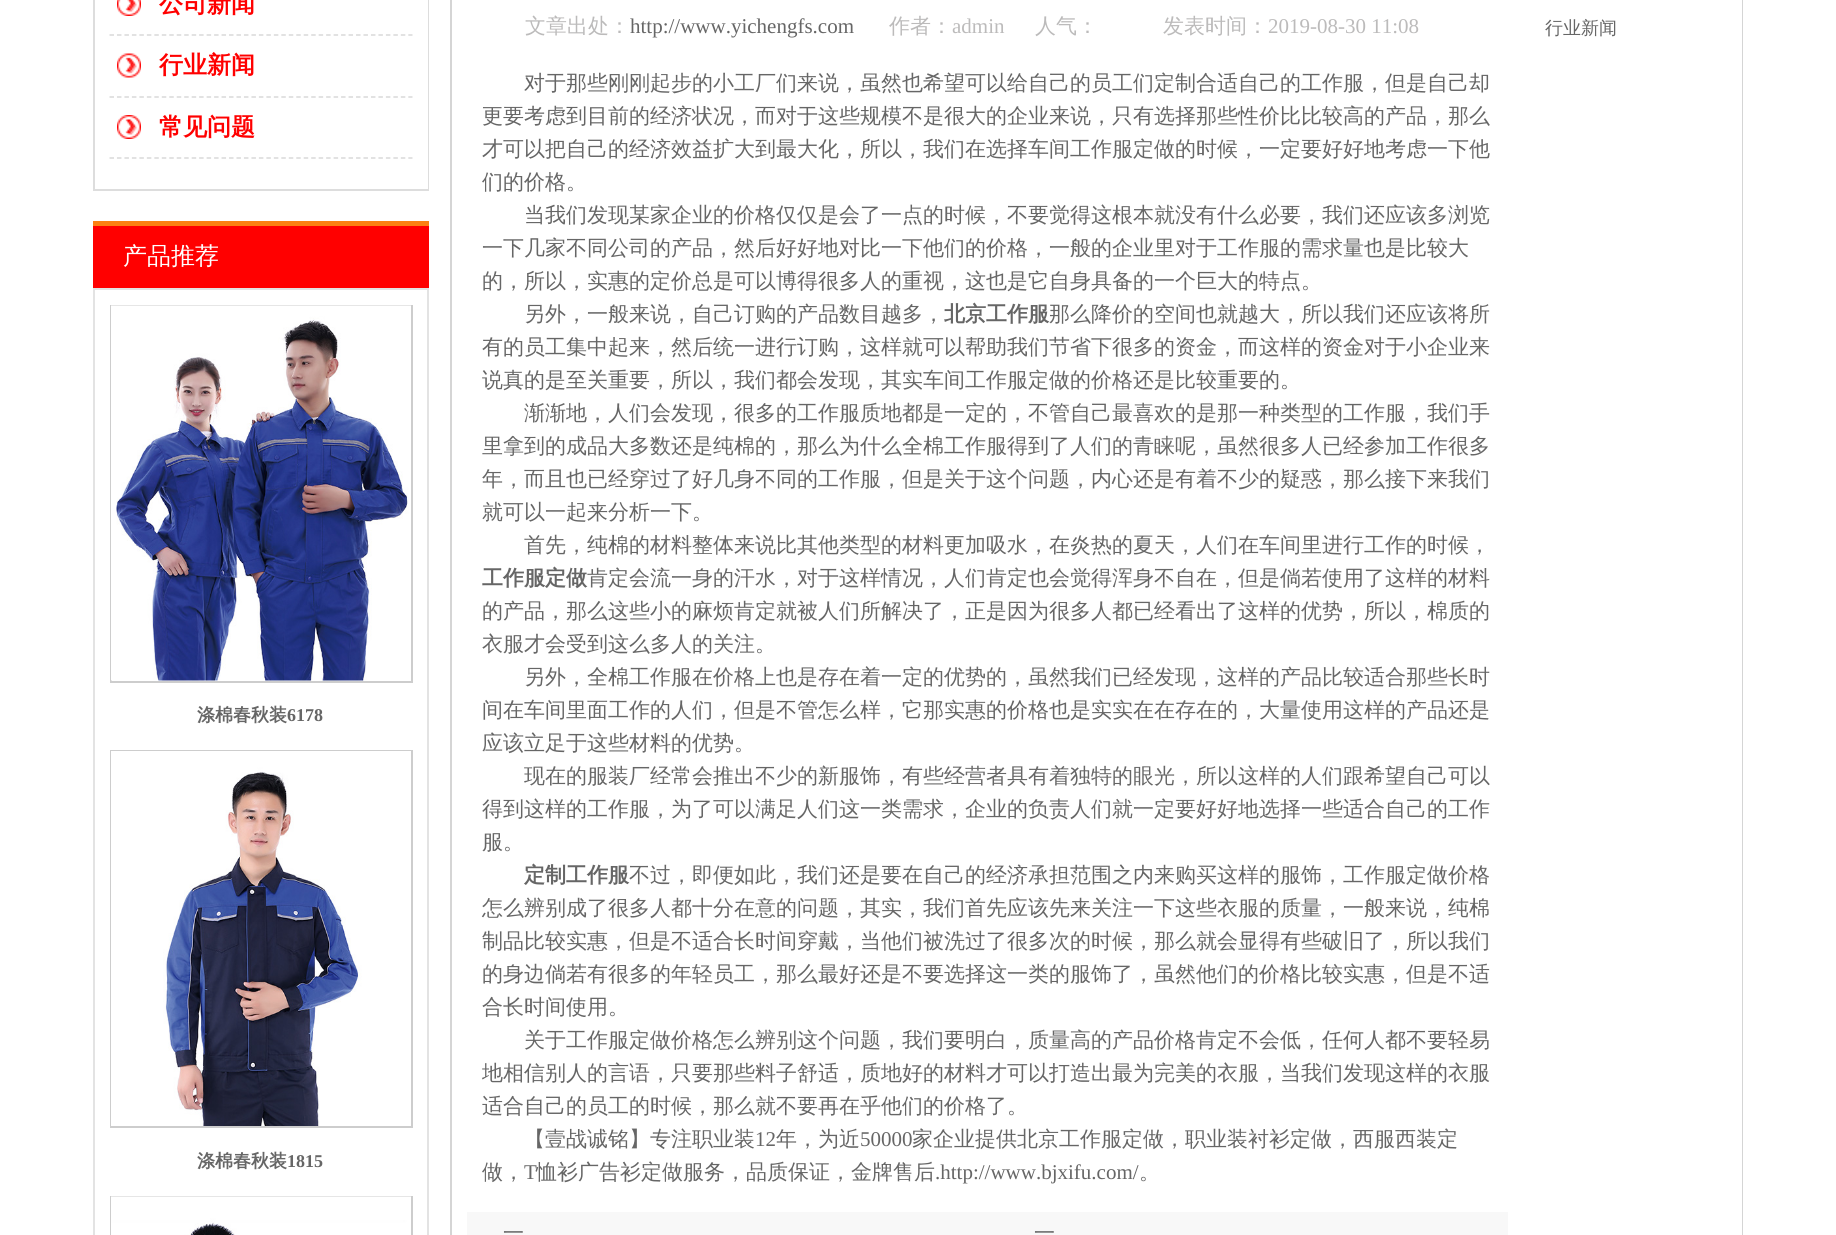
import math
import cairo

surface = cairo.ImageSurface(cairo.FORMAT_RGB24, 1836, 1235)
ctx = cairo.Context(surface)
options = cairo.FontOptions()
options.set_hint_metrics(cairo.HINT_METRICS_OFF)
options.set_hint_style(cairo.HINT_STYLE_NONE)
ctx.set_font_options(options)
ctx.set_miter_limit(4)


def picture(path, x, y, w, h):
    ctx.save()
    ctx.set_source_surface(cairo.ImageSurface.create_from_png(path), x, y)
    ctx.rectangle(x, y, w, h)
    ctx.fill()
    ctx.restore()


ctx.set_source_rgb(1, 1, 1)
ctx.paint()
ctx.set_source_rgb(0.867, 0.867, 0.867)
ctx.rectangle(428, 0, 1, 191)
ctx.fill()
ctx.rectangle(93, 189, 336, 2)
ctx.fill()
ctx.rectangle(93, 0, 2, 191)
ctx.fill()
picture("img1.png", 117, 0, 24, 16)
ctx.new_path()
ctx.move_to(109.5, 35)
ctx.line_to(412.5, 35)
ctx.set_source_rgb(0.851, 0.851, 0.851)
ctx.set_line_width(1.5)
ctx.set_dash([4.5, 2.97])
ctx.stroke()
ctx.select_font_face("WenQuanYi Zen Hei", cairo.FONT_SLANT_NORMAL, cairo.FONT_WEIGHT_BOLD)
ctx.set_font_size(24)
ctx.set_source_rgb(1, 0, 0)
ctx.move_to(159, 12)
ctx.show_text("公司新闻")
picture("img2.png", 117, 53, 24, 25)
ctx.new_path()
ctx.move_to(109.5, 97)
ctx.line_to(412.5, 97)
ctx.set_source_rgb(0.851, 0.851, 0.851)
ctx.stroke()
ctx.set_source_rgb(1, 0, 0)
ctx.move_to(159, 73)
ctx.show_text("行业新闻")
picture("img3.png", 117, 115, 24, 24)
ctx.new_path()
ctx.move_to(109.5, 158)
ctx.line_to(412.5, 158)
ctx.set_source_rgb(0.851, 0.851, 0.851)
ctx.stroke()
ctx.set_source_rgb(1, 0, 0)
ctx.move_to(159, 135)
ctx.show_text("常见问题")
ctx.rectangle(93, 226, 336, 62)
ctx.fill()
ctx.set_source_rgb(0.988, 0.502, 0.071)
ctx.rectangle(93, 221, 336, 5)
ctx.fill()
ctx.select_font_face("WenQuanYi Zen Hei Medium")
ctx.set_source_rgb(1, 1, 1)
ctx.move_to(123, 264)
ctx.show_text("产品推荐")
ctx.rectangle(94, 289, 334, 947)
ctx.set_source_rgb(0.89, 0.89, 0.89)
ctx.set_line_width(2)
ctx.set_dash([])
ctx.stroke()
ctx.rectangle(111, 306, 301, 376)
ctx.set_source_rgb(0.804, 0.804, 0.804)
ctx.stroke()
picture("img4.png", 111, 305, 300, 376)
ctx.select_font_face("WenQuanYi Zen Hei", cairo.FONT_SLANT_NORMAL, cairo.FONT_WEIGHT_BOLD)
ctx.set_font_size(18)
ctx.set_source_rgb(0.4, 0.4, 0.4)
ctx.move_to(197, 721)
ctx.show_text("涤棉春秋装")
ctx.select_font_face("Liberation Serif", cairo.FONT_SLANT_NORMAL, cairo.FONT_WEIGHT_BOLD)
ctx.move_to(287, 721)
ctx.show_text("6178")
ctx.rectangle(111, 751, 301, 376)
ctx.set_source_rgb(0.804, 0.804, 0.804)
ctx.stroke()
picture("img5.png", 111, 751, 300, 375)
ctx.select_font_face("WenQuanYi Zen Hei", cairo.FONT_SLANT_NORMAL, cairo.FONT_WEIGHT_BOLD)
ctx.set_source_rgb(0.4, 0.4, 0.4)
ctx.move_to(197, 1167)
ctx.show_text("涤棉春秋装")
ctx.select_font_face("Liberation Serif", cairo.FONT_SLANT_NORMAL, cairo.FONT_WEIGHT_BOLD)
ctx.move_to(287, 1167)
ctx.show_text("1815")
ctx.rectangle(111, 1197, 301, 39)
ctx.set_source_rgb(0.804, 0.804, 0.804)
ctx.stroke()
picture("img6.png", 111, 1196, 300, 39)
ctx.set_source_rgb(0.835, 0.835, 0.835)
ctx.rectangle(1742, 0, 1, 1235)
ctx.fill()
ctx.rectangle(450, 0, 2, 1235)
ctx.fill()
ctx.select_font_face("WenQuanYi Zen Hei Medium")
ctx.set_font_size(21)
ctx.set_source_rgb(0.737, 0.733, 0.733)
ctx.move_to(525, 33)
ctx.show_text("文章出处：")
ctx.select_font_face("Liberation Serif")
ctx.set_source_rgb(0.4, 0.4, 0.4)
ctx.move_to(630, 33)
ctx.show_text("http://www.yichengfs.com")
ctx.select_font_face("WenQuanYi Zen Hei Medium")
ctx.set_source_rgb(0.737, 0.733, 0.733)
ctx.move_to(889, 33)
ctx.show_text("作者：")
ctx.select_font_face("Liberation Serif")
ctx.move_to(952, 33)
ctx.show_text("admin")
ctx.select_font_face("WenQuanYi Zen Hei Medium")
ctx.move_to(1035, 33)
ctx.show_text("人气：")
ctx.move_to(1163, 33)
ctx.show_text("发表时间：")
ctx.select_font_face("Liberation Serif")
ctx.move_to(1268, 33)
ctx.show_text("2019-08-30 11:08")
ctx.select_font_face("WenQuanYi Zen Hei Medium")
ctx.set_source_rgb(0.4, 0.4, 0.4)
ctx.move_to(524, 90)
ctx.show_text("对于那些刚刚起步的小工厂们来说，虽然也希望可以给自己的员工们定制合适自己的工作服，但是自己却")
ctx.move_to(482, 123)
ctx.show_text("更要考虑到目前的经济状况，而对于这些规模不是很大的企业来说，只有选择那些性价比比较高的产品，那么")
ctx.move_to(482, 156)
ctx.show_text("才可以把自己的经济效益扩大到最大化，所以，我们在选择车间工作服定做的时候，一定要好好地考虑一下他")
ctx.move_to(482, 189)
ctx.show_text("们的价格。")
ctx.move_to(524, 222)
ctx.show_text("当我们发现某家企业的价格仅仅是会了一点的时候，不要觉得这根本就没有什么必要，我们还应该多浏览")
ctx.move_to(482, 255)
ctx.show_text("一下几家不同公司的产品，然后好好地对比一下他们的价格，一般的企业里对于工作服的需求量也是比较大")
ctx.move_to(482, 288)
ctx.show_text("的，所以，实惠的定价总是可以博得很多人的重视，这也是它自身具备的一个巨大的特点。")
ctx.move_to(524, 321)
ctx.show_text("另外，一般来说，自己订购的产品数目越多，")
ctx.select_font_face("WenQuanYi Zen Hei", cairo.FONT_SLANT_NORMAL, cairo.FONT_WEIGHT_BOLD)
ctx.move_to(944, 321)
ctx.show_text("北京工作服")
ctx.select_font_face("WenQuanYi Zen Hei Medium")
ctx.move_to(1049, 321)
ctx.show_text("那么降价的空间也就越大，所以我们还应该将所")
ctx.move_to(482, 354)
ctx.show_text("有的员工集中起来，然后统一进行订购，这样就可以帮助我们节省下很多的资金，而这样的资金对于小企业来")
ctx.move_to(482, 387)
ctx.show_text("说真的是至关重要，所以，我们都会发现，其实车间工作服定做的价格还是比较重要的。")
ctx.move_to(524, 420)
ctx.show_text("渐渐地，人们会发现，很多的工作服质地都是一定的，不管自己最喜欢的是那一种类型的工作服，我们手")
ctx.move_to(482, 453)
ctx.show_text("里拿到的成品大多数还是纯棉的，那么为什么全棉工作服得到了人们的青睐呢，虽然很多人已经参加工作很多")
ctx.move_to(482, 486)
ctx.show_text("年，而且也已经穿过了好几身不同的工作服，但是关于这个问题，内心还是有着不少的疑惑，那么接下来我们")
ctx.move_to(482, 519)
ctx.show_text("就可以一起来分析一下。")
ctx.move_to(524, 552)
ctx.show_text("首先，纯棉的材料整体来说比其他类型的材料更加吸水，在炎热的夏天，人们在车间里进行工作的时候，")
ctx.select_font_face("WenQuanYi Zen Hei", cairo.FONT_SLANT_NORMAL, cairo.FONT_WEIGHT_BOLD)
ctx.move_to(482, 585)
ctx.show_text("工作服定做")
ctx.select_font_face("WenQuanYi Zen Hei Medium")
ctx.move_to(587, 585)
ctx.show_text("肯定会流一身的汗水，对于这样情况，人们肯定也会觉得浑身不自在，但是倘若使用了这样的材料")
ctx.move_to(482, 618)
ctx.show_text("的产品，那么这些小的麻烦肯定就被人们所解决了，正是因为很多人都已经看出了这样的优势，所以，棉质的")
ctx.move_to(482, 651)
ctx.show_text("衣服才会受到这么多人的关注。")
ctx.move_to(524, 684)
ctx.show_text("另外，全棉工作服在价格上也是存在着一定的优势的，虽然我们已经发现，这样的产品比较适合那些长时")
ctx.move_to(482, 717)
ctx.show_text("间在车间里面工作的人们，但是不管怎么样，它那实惠的价格也是实实在在存在的，大量使用这样的产品还是")
ctx.move_to(482, 750)
ctx.show_text("应该立足于这些材料的优势。")
ctx.move_to(524, 783)
ctx.show_text("现在的服装厂经常会推出不少的新服饰，有些经营者具有着独特的眼光，所以这样的人们跟希望自己可以")
ctx.move_to(482, 816)
ctx.show_text("得到这样的工作服，为了可以满足人们这一类需求，企业的负责人们就一定要好好地选择一些适合自己的工作")
ctx.move_to(482, 849)
ctx.show_text("服。")
ctx.select_font_face("WenQuanYi Zen Hei", cairo.FONT_SLANT_NORMAL, cairo.FONT_WEIGHT_BOLD)
ctx.move_to(524, 882)
ctx.show_text("定制工作服")
ctx.select_font_face("WenQuanYi Zen Hei Medium")
ctx.move_to(629, 882)
ctx.show_text("不过，即便如此，我们还是要在自己的经济承担范围之内来购买这样的服饰，工作服定做价格")
ctx.move_to(482, 915)
ctx.show_text("怎么辨别成了很多人都十分在意的问题，其实，我们首先应该先来关注一下这些衣服的质量，一般来说，纯棉")
ctx.move_to(482, 948)
ctx.show_text("制品比较实惠，但是不适合长时间穿戴，当他们被洗过了很多次的时候，那么就会显得有些破旧了，所以我们")
ctx.move_to(482, 981)
ctx.show_text("的身边倘若有很多的年轻员工，那么最好还是不要选择这一类的服饰了，虽然他们的价格比较实惠，但是不适")
ctx.move_to(482, 1014)
ctx.show_text("合长时间使用。")
ctx.move_to(524, 1047)
ctx.show_text("关于工作服定做价格怎么辨别这个问题，我们要明白，质量高的产品价格肯定不会低，任何人都不要轻易")
ctx.move_to(482, 1080)
ctx.show_text("地相信别人的言语，只要那些料子舒适，质地好的材料才可以打造出最为完美的衣服，当我们发现这样的衣服")
ctx.move_to(482, 1113)
ctx.show_text("适合自己的员工的时候，那么就不要再在乎他们的价格了。")
ctx.move_to(524, 1146)
ctx.show_text("【壹战诚铭】专注职业装")
ctx.select_font_face("Liberation Serif")
ctx.move_to(755, 1146)
ctx.show_text("12")
ctx.select_font_face("WenQuanYi Zen Hei Medium")
ctx.move_to(776, 1146)
ctx.show_text("年，为近")
ctx.select_font_face("Liberation Serif")
ctx.move_to(860, 1146)
ctx.show_text("50000")
ctx.select_font_face("WenQuanYi Zen Hei Medium")
ctx.move_to(912, 1146)
ctx.show_text("家企业提供北京工作服定做，职业装衬衫定做，西服西装定")
ctx.move_to(482, 1179)
ctx.show_text("做，")
ctx.select_font_face("Liberation Serif")
ctx.move_to(524, 1179)
ctx.show_text("T")
ctx.select_font_face("WenQuanYi Zen Hei Medium")
ctx.move_to(536, 1179)
ctx.show_text("恤衫广告衫定做服务，品质保证，金牌售后")
ctx.select_font_face("Liberation Serif")
ctx.move_to(935, 1179)
ctx.show_text(".http://www.bjxifu.com/")
ctx.select_font_face("WenQuanYi Zen Hei Medium")
ctx.move_to(1139, 1179)
ctx.show_text("。")
ctx.set_source_rgb(0.969, 0.969, 0.969)
ctx.rectangle(467, 1212, 1041, 23)
ctx.fill()
ctx.set_source_rgb(0.4, 0.4, 0.4)
ctx.move_to(503, 1240)
ctx.show_text("一")
ctx.move_to(1034, 1240)
ctx.show_text("一")
ctx.set_font_size(18)
ctx.move_to(1545, 34)
ctx.show_text("行业新闻")
surface.write_to_png("page.png")
